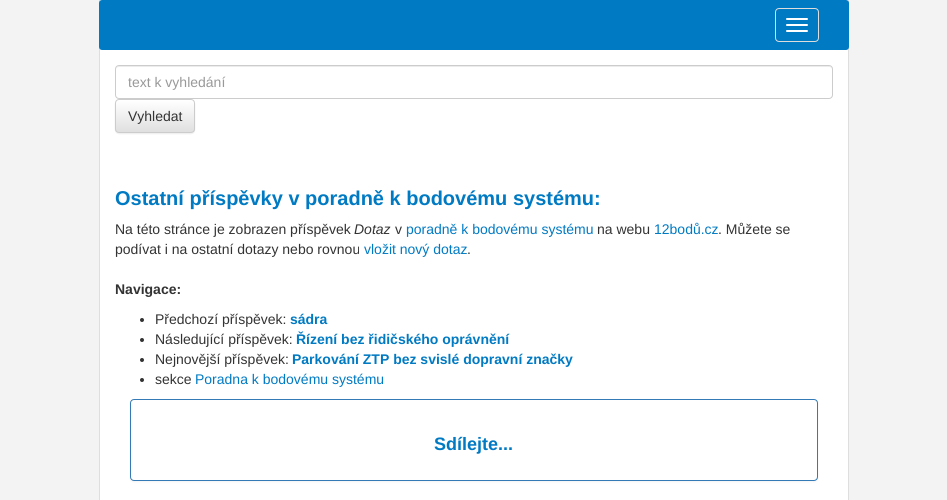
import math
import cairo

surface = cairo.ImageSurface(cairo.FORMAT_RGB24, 947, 500)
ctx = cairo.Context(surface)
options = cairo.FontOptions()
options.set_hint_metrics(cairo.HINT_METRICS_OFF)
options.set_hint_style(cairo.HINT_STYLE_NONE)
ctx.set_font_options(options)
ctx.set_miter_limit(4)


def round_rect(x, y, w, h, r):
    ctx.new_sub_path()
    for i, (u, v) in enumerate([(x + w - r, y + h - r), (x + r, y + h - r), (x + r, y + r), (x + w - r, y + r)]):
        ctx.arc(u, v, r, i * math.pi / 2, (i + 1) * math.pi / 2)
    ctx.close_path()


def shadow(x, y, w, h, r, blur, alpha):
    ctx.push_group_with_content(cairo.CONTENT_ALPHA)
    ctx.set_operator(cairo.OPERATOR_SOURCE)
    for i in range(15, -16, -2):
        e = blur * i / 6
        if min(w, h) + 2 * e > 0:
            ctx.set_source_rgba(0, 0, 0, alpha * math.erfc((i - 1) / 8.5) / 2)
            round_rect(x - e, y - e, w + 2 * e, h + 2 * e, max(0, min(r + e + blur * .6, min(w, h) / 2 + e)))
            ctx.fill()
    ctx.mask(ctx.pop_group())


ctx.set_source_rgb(0.953, 0.953, 0.953)
ctx.paint()
ctx.set_source_rgb(1, 1, 1)
ctx.rectangle(99.5, -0.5, 749, 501)
ctx.fill_preserve()
ctx.set_source_rgb(0.871, 0.871, 0.871)
ctx.set_line_width(1)
ctx.stroke()
ctx.set_source_rgb(0, 0.478, 0.765)
round_rect(99, 0, 750, 50, 3)
ctx.fill()
round_rect(775.5, 8.5, 43, 33, 3.5)
ctx.set_source_rgb(0.867, 0.867, 0.867)
ctx.stroke()
ctx.set_source_rgb(1, 1, 1)
round_rect(786, 18, 22, 2, 1)
ctx.fill()
round_rect(786, 24, 22, 2, 1)
ctx.fill()
round_rect(786, 30, 22, 2, 1)
ctx.fill()
ctx.set_source_rgb(0.925, 0.925, 0.925)
ctx.new_path()
ctx.move_to(119, 67)
ctx.line_to(829, 67)
ctx.curve_to(831, 67, 832, 68, 832, 70)
ctx.curve_to(832, 68, 831, 66, 829, 66)
ctx.line_to(119, 66)
ctx.curve_to(117, 66, 116, 68, 116, 70)
ctx.curve_to(116, 68, 117, 67, 119, 67)
ctx.close_path()
ctx.fill()
round_rect(115.5, 65.5, 717, 33, 3.5)
ctx.set_source_rgb(0.8, 0.8, 0.8)
ctx.stroke()
ctx.select_font_face("Liberation Sans")
ctx.set_font_size(14)
ctx.set_source_rgb(0.6, 0.6, 0.6)
ctx.move_to(128, 87)
ctx.show_text("text k vyhledání")
ctx.set_source_rgb(0, 0, 0)
shadow(115, 100, 80, 34, 4, 0.5, 0.07)
ctx.save()
round_rect(115, 99, 80, 34, 4)
ctx.clip()
gradient = cairo.LinearGradient(155, 100, 155, 132)
gradient.add_color_stop_rgba(0, 1, 1, 1, 1)
gradient.add_color_stop_rgba(1, 0.878, 0.878, 0.878, 1)
ctx.set_source(gradient)
ctx.rectangle(115, 100, 80, 32)
ctx.fill()
ctx.restore()
round_rect(115.5, 99.5, 79, 33, 3.5)
ctx.set_source_rgb(0.8, 0.8, 0.8)
ctx.stroke()
ctx.set_source_rgb(0.2, 0.2, 0.2)
ctx.move_to(128, 121)
ctx.show_text("Vyhledat")
ctx.select_font_face("Liberation Sans", cairo.FONT_SLANT_NORMAL, cairo.FONT_WEIGHT_BOLD)
ctx.set_font_size(20)
ctx.set_source_rgb(0, 0.478, 0.765)
ctx.move_to(115, 205)
ctx.show_text("Ostatní příspěvky v poradně k bodovému systému:")
ctx.select_font_face("Liberation Sans")
ctx.set_font_size(14)
ctx.set_source_rgb(0.2, 0.2, 0.2)
ctx.move_to(115, 234)
ctx.show_text("Na této stránce je zobrazen příspěvek")
ctx.select_font_face("Liberation Sans", cairo.FONT_SLANT_ITALIC)
ctx.move_to(354, 234)
ctx.show_text("Dotaz")
ctx.select_font_face("Liberation Sans")
ctx.move_to(395, 234)
ctx.show_text("v")
ctx.set_source_rgb(0, 0.478, 0.765)
ctx.move_to(406, 234)
ctx.show_text("poradně k bodovému systému")
ctx.set_source_rgb(0.2, 0.2, 0.2)
ctx.move_to(597, 234)
ctx.show_text("na webu")
ctx.set_source_rgb(0, 0.478, 0.765)
ctx.move_to(654, 234)
ctx.show_text("12bodů.cz")
ctx.set_source_rgb(0.2, 0.2, 0.2)
ctx.move_to(718, 234)
ctx.show_text(". Můžete se")
ctx.move_to(115, 254)
ctx.show_text("podívat i na ostatní dotazy nebo rovnou")
ctx.set_source_rgb(0, 0.478, 0.765)
ctx.move_to(364, 254)
ctx.show_text("vložit nový dotaz")
ctx.set_source_rgb(0.2, 0.2, 0.2)
ctx.move_to(467, 254)
ctx.show_text(".")
ctx.select_font_face("Liberation Sans", cairo.FONT_SLANT_NORMAL, cairo.FONT_WEIGHT_BOLD)
ctx.move_to(115, 294)
ctx.show_text("Navigace:")
ctx.new_path()
ctx.arc(142, 320, 2, 0, 2 * math.pi)
ctx.fill()
ctx.select_font_face("Liberation Sans")
ctx.move_to(155, 324)
ctx.show_text("Předchozí příspěvek:")
ctx.select_font_face("Liberation Sans", cairo.FONT_SLANT_NORMAL, cairo.FONT_WEIGHT_BOLD)
ctx.set_source_rgb(0, 0.478, 0.765)
ctx.move_to(290, 324)
ctx.show_text("sádra")
ctx.set_source_rgb(0.2, 0.2, 0.2)
ctx.new_path()
ctx.arc(142, 340, 2, 0, 2 * math.pi)
ctx.fill()
ctx.select_font_face("Liberation Sans")
ctx.move_to(155, 344)
ctx.show_text("Následující příspěvek:")
ctx.select_font_face("Liberation Sans", cairo.FONT_SLANT_NORMAL, cairo.FONT_WEIGHT_BOLD)
ctx.set_source_rgb(0, 0.478, 0.765)
ctx.move_to(296, 344)
ctx.show_text("Řízení bez řidičského oprávnění")
ctx.set_source_rgb(0.2, 0.2, 0.2)
ctx.new_path()
ctx.arc(142, 360, 2, 0, 2 * math.pi)
ctx.fill()
ctx.select_font_face("Liberation Sans")
ctx.move_to(155, 364)
ctx.show_text("Nejnovější příspěvek:")
ctx.select_font_face("Liberation Sans", cairo.FONT_SLANT_NORMAL, cairo.FONT_WEIGHT_BOLD)
ctx.set_source_rgb(0, 0.478, 0.765)
ctx.move_to(292, 364)
ctx.show_text("Parkování ZTP bez svislé dopravní značky")
ctx.set_source_rgb(0.2, 0.2, 0.2)
ctx.new_path()
ctx.arc(142, 380, 2, 0, 2 * math.pi)
ctx.fill()
ctx.select_font_face("Liberation Sans")
ctx.move_to(155, 384)
ctx.show_text("sekce")
ctx.set_source_rgb(0, 0.478, 0.765)
ctx.move_to(195, 384)
ctx.show_text("Poradna k bodovému systému")
ctx.set_source_rgb(0, 0, 0)
shadow(130, 400, 688, 82, 4, 1, 0.05)
ctx.set_source_rgb(1, 1, 1)
round_rect(130.5, 399.5, 687, 81, 3.5)
ctx.fill_preserve()
ctx.set_source_rgb(0.2, 0.478, 0.718)
ctx.stroke()
ctx.select_font_face("Liberation Sans", cairo.FONT_SLANT_NORMAL, cairo.FONT_WEIGHT_BOLD)
ctx.set_font_size(18)
ctx.set_source_rgb(0, 0.478, 0.765)
ctx.move_to(434, 450)
ctx.show_text("Sdílejte...")
surface.write_to_png("page.png")
